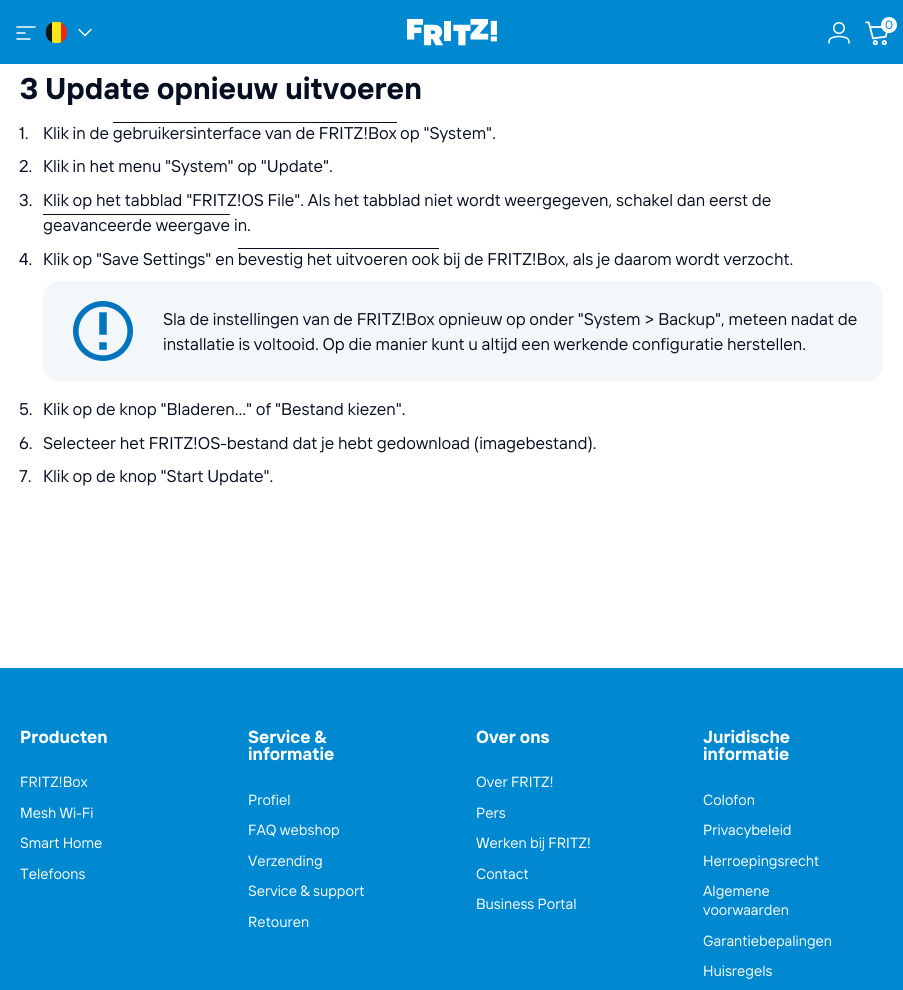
import math
import cairo

surface = cairo.ImageSurface(cairo.FORMAT_RGB24, 903, 990)
ctx = cairo.Context(surface)
options = cairo.FontOptions()
options.set_hint_metrics(cairo.HINT_METRICS_OFF)
options.set_hint_style(cairo.HINT_STYLE_NONE)
ctx.set_font_options(options)
ctx.set_miter_limit(4)


def round_rect(x, y, w, h, r):
    ctx.new_sub_path()
    for i, (u, v) in enumerate([(x + w - r, y + h - r), (x + r, y + h - r), (x + r, y + r), (x + w - r, y + r)]):
        ctx.arc(u, v, r, i * math.pi / 2, (i + 1) * math.pi / 2)
    ctx.close_path()


def picture(path, x, y, w, h):
    ctx.save()
    ctx.set_source_surface(cairo.ImageSurface.create_from_png(path), x, y)
    ctx.rectangle(x, y, w, h)
    ctx.fill()
    ctx.restore()


ctx.set_source_rgb(1, 1, 1)
ctx.paint()
ctx.set_source_rgb(0, 0.537, 0.82)
ctx.rectangle(0, 0, 903, 64)
ctx.fill()
ctx.new_path()
ctx.move_to(17, 27)
ctx.line_to(35, 27)
ctx.move_to(17, 33)
ctx.line_to(25, 33)
ctx.move_to(17, 39)
ctx.line_to(30, 39)
ctx.set_source_rgb(1, 1, 1)
ctx.set_line_width(1.5)
ctx.set_line_cap(cairo.LINE_CAP_ROUND)
ctx.stroke()
ctx.save()
ctx.rectangle(46, 22, 21, 21)
ctx.clip()
ctx.set_source_rgb(0.973, 0.906, 0.11)
ctx.new_path()
ctx.move_to(50, 41)
ctx.line_to(50, 23.5)
ctx.curve_to(54, 21, 59.5, 21, 63, 23.5)
ctx.line_to(63, 41)
ctx.curve_to(59.5, 44, 54, 44, 50, 41)
ctx.close_path()
ctx.fill()
ctx.restore()
ctx.set_source_rgb(0.953, 0.149, 0.078)
ctx.new_path()
ctx.move_to(61, 42.5)
ctx.line_to(61, 22.5)
ctx.curve_to(69, 26.5, 69, 38.5, 61, 42.5)
ctx.close_path()
ctx.fill()
ctx.save()
ctx.rectangle(46, 22, 21, 21)
ctx.clip()
ctx.set_source_rgb(0.075, 0.078, 0.075)
ctx.new_path()
ctx.move_to(45.5, 32.5)
ctx.curve_to(45.5, 28, 48, 24, 52, 22.5)
ctx.line_to(52, 42.5)
ctx.curve_to(48, 40.5, 45.5, 36.5, 45.5, 32.5)
ctx.close_path()
ctx.fill()
ctx.restore()
ctx.new_path()
ctx.move_to(79, 29.5)
ctx.line_to(85, 35.5)
ctx.line_to(91, 29.5)
ctx.set_source_rgb(1, 1, 1)
ctx.set_line_width(1.4)
ctx.set_line_join(cairo.LINE_JOIN_ROUND)
ctx.stroke()
picture("img1.png", 407, 19, 90, 27)
picture("img2.png", 828, 22, 22, 22)
picture("img3.png", 865, 21, 23, 24)
ctx.arc(889, 25, 8, 0, 2 * math.pi)
ctx.fill()
ctx.select_font_face("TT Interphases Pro")
ctx.set_font_size(12)
ctx.set_source_rgb(0, 0.537, 0.82)
ctx.move_to(885, 29)
ctx.show_text("0")
ctx.select_font_face("TT Interphases Pro", cairo.FONT_SLANT_NORMAL, cairo.FONT_WEIGHT_BOLD)
ctx.set_font_size(30)
ctx.set_source_rgb(0.027, 0.055, 0.129)
ctx.move_to(20, 99)
ctx.show_text("3 Update opnieuw uitvoeren")
ctx.rectangle(113, 122, 284, 1)
ctx.fill()
ctx.select_font_face("TT Interphases Pro")
ctx.set_font_size(17)
ctx.move_to(19, 139)
ctx.show_text("1.")
ctx.move_to(43, 139)
ctx.show_text("Klik in de gebruikersinterface van de FRITZ!Box")
ctx.move_to(400, 139)
ctx.show_text("op \"System\".")
ctx.move_to(19, 172)
ctx.show_text("2.")
ctx.move_to(43, 172)
ctx.show_text("Klik in het menu \"System\" op \"Update\".")
ctx.move_to(19, 206)
ctx.show_text("3.")
ctx.move_to(43, 206)
ctx.show_text("Klik op het tabblad \"FRITZ!OS File\". Als het tabblad niet wordt weergegeven, schakel dan eerst de")
ctx.move_to(43, 231)
ctx.show_text("geavanceerde weergave")
ctx.rectangle(43, 214, 187, 1)
ctx.fill()
ctx.move_to(234, 231)
ctx.show_text("in.")
ctx.rectangle(238, 248, 201, 1)
ctx.fill()
ctx.move_to(19, 265)
ctx.show_text("4.")
ctx.move_to(43, 265)
ctx.show_text("Klik op \"Save Settings\" en bevestig het uitvoeren ook")
ctx.move_to(443, 265)
ctx.show_text("bij de FRITZ!Box, als je daarom wordt verzocht.")
ctx.set_source_rgb(0.957, 0.965, 0.973)
round_rect(43, 281, 840, 100, 16)
ctx.fill()
picture("img4.png", 73, 301, 60, 60)
ctx.set_source_rgb(0.027, 0.055, 0.129)
ctx.move_to(163, 325)
ctx.show_text("Sla de instellingen van de FRITZ!Box opnieuw op onder \"System > Backup\", meteen nadat de")
ctx.move_to(163, 350)
ctx.show_text("installatie is voltooid. Op die manier kunt u altijd een werkende configuratie herstellen.")
ctx.move_to(19, 415)
ctx.show_text("5.")
ctx.move_to(43, 415)
ctx.show_text("Klik op de knop \"Bladeren...\" of \"Bestand kiezen\".")
ctx.move_to(19, 449)
ctx.show_text("6.")
ctx.move_to(43, 449)
ctx.show_text("Selecteer het FRITZ!OS-bestand dat je hebt gedownload (imagebestand).")
ctx.move_to(19, 482)
ctx.show_text("7.")
ctx.move_to(43, 482)
ctx.show_text("Klik op de knop \"Start Update\".")
ctx.set_source_rgb(0, 0.537, 0.82)
ctx.rectangle(0, 668, 903, 322)
ctx.fill()
ctx.select_font_face("TT Interphases Pro", cairo.FONT_SLANT_NORMAL, cairo.FONT_WEIGHT_BOLD)
ctx.set_font_size(17.5)
ctx.set_source_rgb(1, 1, 1)
ctx.move_to(20, 743)
ctx.show_text("Producten")
ctx.select_font_face("TT Interphases Pro")
ctx.set_font_size(14.75)
ctx.move_to(20, 787)
ctx.show_text("FRITZ!Box")
ctx.move_to(20, 818)
ctx.show_text("Mesh Wi-Fi")
ctx.move_to(20, 848)
ctx.show_text("Smart Home")
ctx.move_to(20, 879)
ctx.show_text("Telefoons")
ctx.select_font_face("TT Interphases Pro", cairo.FONT_SLANT_NORMAL, cairo.FONT_WEIGHT_BOLD)
ctx.set_font_size(17.5)
ctx.move_to(248, 743)
ctx.show_text("Service &")
ctx.move_to(248, 760)
ctx.show_text("informatie")
ctx.select_font_face("TT Interphases Pro")
ctx.set_font_size(14.75)
ctx.move_to(248, 805)
ctx.show_text("Profiel")
ctx.move_to(248, 835)
ctx.show_text("FAQ webshop")
ctx.move_to(248, 866)
ctx.show_text("Verzending")
ctx.move_to(248, 896)
ctx.show_text("Service & support")
ctx.move_to(248, 927)
ctx.show_text("Retouren")
ctx.select_font_face("TT Interphases Pro", cairo.FONT_SLANT_NORMAL, cairo.FONT_WEIGHT_BOLD)
ctx.set_font_size(17.5)
ctx.move_to(476, 743)
ctx.show_text("Over ons")
ctx.select_font_face("TT Interphases Pro")
ctx.set_font_size(14.75)
ctx.move_to(476, 787)
ctx.show_text("Over FRITZ!")
ctx.move_to(476, 818)
ctx.show_text("Pers")
ctx.move_to(476, 848)
ctx.show_text("Werken bij FRITZ!")
ctx.move_to(476, 879)
ctx.show_text("Contact")
ctx.move_to(476, 909)
ctx.show_text("Business Portal")
ctx.select_font_face("TT Interphases Pro", cairo.FONT_SLANT_NORMAL, cairo.FONT_WEIGHT_BOLD)
ctx.set_font_size(17.5)
ctx.move_to(703, 743)
ctx.show_text("Juridische")
ctx.move_to(703, 760)
ctx.show_text("informatie")
ctx.select_font_face("TT Interphases Pro")
ctx.set_font_size(14.75)
ctx.move_to(703, 805)
ctx.show_text("Colofon")
ctx.move_to(703, 835)
ctx.show_text("Privacybeleid")
ctx.move_to(703, 866)
ctx.show_text("Herroepingsrecht")
ctx.move_to(703, 896)
ctx.show_text("Algemene")
ctx.move_to(703, 915)
ctx.show_text("voorwaarden")
ctx.move_to(703, 946)
ctx.show_text("Garantiebepalingen")
ctx.move_to(703, 976)
ctx.show_text("Huisregels")
surface.write_to_png("page.png")
